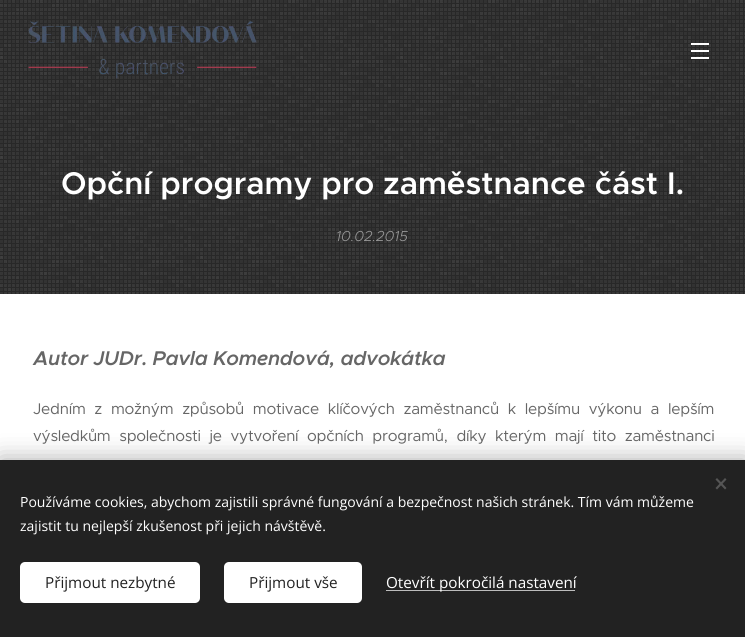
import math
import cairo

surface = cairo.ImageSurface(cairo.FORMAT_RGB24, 745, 637)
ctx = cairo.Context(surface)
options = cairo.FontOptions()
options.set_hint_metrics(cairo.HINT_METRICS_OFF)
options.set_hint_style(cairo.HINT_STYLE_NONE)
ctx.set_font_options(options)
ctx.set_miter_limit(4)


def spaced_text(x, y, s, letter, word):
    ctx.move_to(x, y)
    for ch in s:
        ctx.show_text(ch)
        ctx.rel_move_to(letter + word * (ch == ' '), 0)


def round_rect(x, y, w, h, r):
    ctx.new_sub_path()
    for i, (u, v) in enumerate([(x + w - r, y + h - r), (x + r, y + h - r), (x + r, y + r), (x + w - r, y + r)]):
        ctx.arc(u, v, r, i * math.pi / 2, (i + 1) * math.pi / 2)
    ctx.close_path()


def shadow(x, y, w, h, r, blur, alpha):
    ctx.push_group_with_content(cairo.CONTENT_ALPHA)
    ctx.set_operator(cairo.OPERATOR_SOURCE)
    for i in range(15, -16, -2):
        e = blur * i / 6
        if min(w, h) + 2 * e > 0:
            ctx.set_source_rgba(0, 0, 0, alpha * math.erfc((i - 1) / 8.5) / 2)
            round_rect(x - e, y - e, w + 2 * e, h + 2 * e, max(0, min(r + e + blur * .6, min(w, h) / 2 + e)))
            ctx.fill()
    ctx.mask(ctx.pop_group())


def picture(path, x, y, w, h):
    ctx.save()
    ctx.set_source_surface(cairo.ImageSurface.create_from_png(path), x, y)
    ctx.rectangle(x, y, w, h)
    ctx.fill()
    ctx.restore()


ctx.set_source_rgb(1, 1, 1)
ctx.paint()
picture("img2.png", 0, 0, 745, 294)
picture("img1.png", 28, 21, 229, 58)
ctx.set_source_rgb(1, 1, 1)
ctx.rectangle(691, 50, 18, 2)
ctx.fill()
ctx.rectangle(691, 43, 18, 2)
ctx.fill()
ctx.rectangle(691, 57, 18, 2)
ctx.fill()
ctx.select_font_face("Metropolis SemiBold")
ctx.set_font_size(31.5)
ctx.move_to(61, 194)
ctx.show_text("Opční programy pro zaměstnance část I.")
ctx.select_font_face("Metropolis Light", cairo.FONT_SLANT_ITALIC)
ctx.set_font_size(14.5)
ctx.set_source_rgb(0.592, 0.592, 0.592)
ctx.move_to(336, 241)
ctx.show_text("10.02.2015")
ctx.select_font_face("Metropolis SemiBold", cairo.FONT_SLANT_ITALIC)
ctx.set_font_size(20)
ctx.set_source_rgb(0.4, 0.4, 0.4)
spaced_text(33, 365, "Autor JUDr. Pavla Komendová, advokátka", -0.25, 0)
ctx.select_font_face("Metropolis")
ctx.set_font_size(15.5)
spaced_text(33, 414, "Jedním z možným způsobů motivace klíčových zaměstnanců k lepšímu výkonu a lepším", -0.25, 4.6)
spaced_text(33, 441, "výsledkům společnosti je vytvoření opčních programů, díky kterým mají tito zaměstnanci", -0.25, 4.5)
ctx.set_source_rgb(0, 0, 0)
shadow(0, 460, 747, 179, 0, 12.5, 0.33)
ctx.set_source_rgb(0.133, 0.133, 0.133)
ctx.rectangle(0, 460, 745, 177)
ctx.fill()
ctx.set_source_rgb(0.333, 0.333, 0.333)
ctx.new_path()
ctx.move_to(715.5, 488)
ctx.line_to(725, 478)
ctx.line_to(726.5, 479.5)
ctx.line_to(717, 489.5)
ctx.close_path()
ctx.fill()
ctx.new_path()
ctx.move_to(717, 478)
ctx.line_to(726.5, 488)
ctx.line_to(725, 489.5)
ctx.line_to(715.5, 479.5)
ctx.close_path()
ctx.fill()
ctx.select_font_face("Open Sans")
ctx.set_font_size(14)
ctx.set_source_rgb(1, 1, 1)
ctx.move_to(20, 507)
ctx.show_text("Používáme cookies, abychom zajistili správné fungování a bezpečnost našich stránek. Tím vám můžeme")
ctx.move_to(20, 531)
ctx.show_text("zajistit tu nejlepší zkušenost při jejich návštěvě.")
round_rect(20, 562, 180, 41, 5)
ctx.fill()
ctx.set_font_size(15.25)
ctx.set_source_rgb(0.133, 0.133, 0.133)
ctx.move_to(45, 588)
ctx.show_text("Přijmout nezbytné")
ctx.set_source_rgb(1, 1, 1)
round_rect(224, 562, 138, 41, 5)
ctx.fill()
ctx.set_source_rgb(0.133, 0.133, 0.133)
ctx.move_to(249, 588)
ctx.show_text("Přijmout vše")
ctx.set_source_rgb(0.741, 0.741, 0.741)
ctx.rectangle(386, 590, 189, 1)
ctx.fill()
ctx.set_source_rgb(1, 1, 1)
ctx.move_to(386, 588)
ctx.show_text("Otevřít pokročilá nastavení")
surface.write_to_png("page.png")
